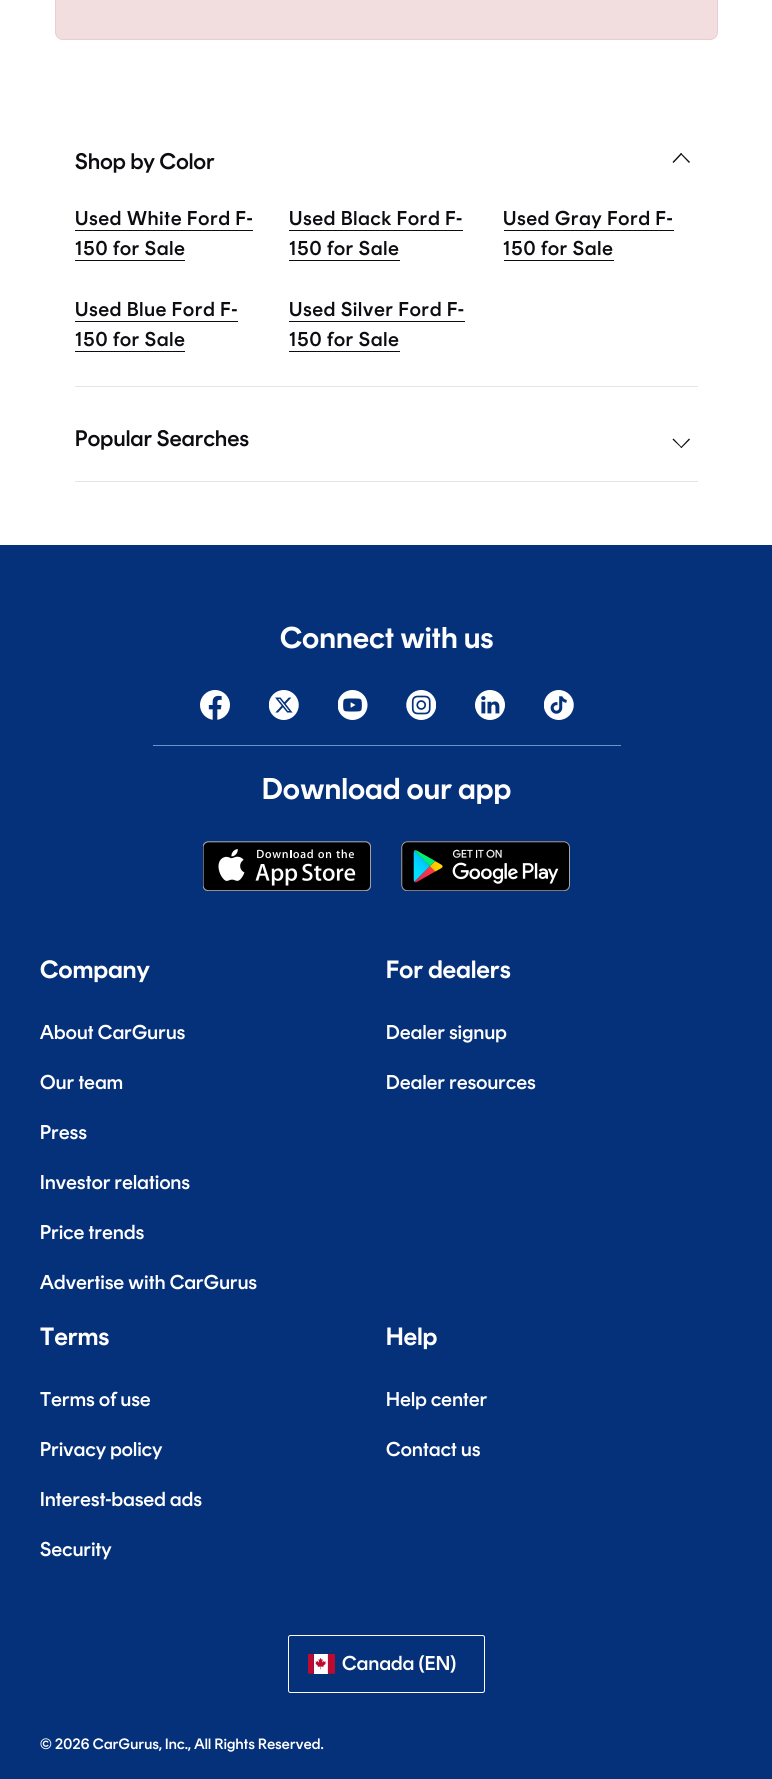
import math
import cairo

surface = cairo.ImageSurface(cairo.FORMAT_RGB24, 772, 1779)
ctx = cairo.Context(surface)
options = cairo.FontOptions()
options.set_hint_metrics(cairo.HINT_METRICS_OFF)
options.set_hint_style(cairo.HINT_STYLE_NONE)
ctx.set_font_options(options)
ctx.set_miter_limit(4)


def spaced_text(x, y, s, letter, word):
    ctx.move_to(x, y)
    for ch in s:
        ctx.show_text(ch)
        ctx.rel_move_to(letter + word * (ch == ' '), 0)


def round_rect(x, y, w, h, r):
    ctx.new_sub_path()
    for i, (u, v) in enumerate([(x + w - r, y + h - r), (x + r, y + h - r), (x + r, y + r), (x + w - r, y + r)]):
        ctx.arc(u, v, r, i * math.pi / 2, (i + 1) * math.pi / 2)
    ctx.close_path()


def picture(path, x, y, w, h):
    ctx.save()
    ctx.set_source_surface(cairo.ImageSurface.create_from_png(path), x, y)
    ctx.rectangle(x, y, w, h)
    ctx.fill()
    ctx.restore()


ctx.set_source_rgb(1, 1, 1)
ctx.paint()
ctx.set_source_rgb(0.949, 0.871, 0.871)
round_rect(55.5, -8.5, 662, 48, 7.5)
ctx.fill_preserve()
ctx.set_source_rgb(0.922, 0.8, 0.82)
ctx.set_line_width(1)
ctx.stroke()
ctx.select_font_face("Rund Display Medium")
ctx.set_font_size(22.5)
ctx.set_source_rgb(0.047, 0.047, 0.067)
spaced_text(75, 169, "Shop by Color", 0.25, 0)
ctx.new_path()
ctx.move_to(672.5, 162)
ctx.line_to(681, 153)
ctx.line_to(682, 154)
ctx.line_to(673.5, 163)
ctx.close_path()
ctx.fill()
ctx.new_path()
ctx.move_to(680.5, 154)
ctx.line_to(681, 153)
ctx.line_to(690, 162)
ctx.line_to(689, 163)
ctx.close_path()
ctx.fill()
ctx.set_source_rgb(0.894, 0.894, 0.898)
ctx.rectangle(75, 386, 623, 1)
ctx.fill()
ctx.set_font_size(20)
ctx.set_source_rgb(0.047, 0.047, 0.067)
spaced_text(75, 225, "Used White Ford F-", 0.9, 0)
ctx.rectangle(75, 230, 178, 1)
ctx.fill()
spaced_text(75, 255, "150 for Sale", 0.9, 0)
ctx.rectangle(75, 260, 110, 1)
ctx.fill()
spaced_text(289, 225, "Used Black Ford F-", 0.9, 0)
ctx.rectangle(289, 230, 174, 1)
ctx.fill()
spaced_text(289, 255, "150 for Sale", 0.9, 0)
ctx.rectangle(289, 260, 111, 1)
ctx.fill()
spaced_text(503, 225, "Used Gray Ford F-", 0.9, 0)
ctx.rectangle(504, 230, 170, 1)
ctx.fill()
spaced_text(503, 255, "150 for Sale", 0.9, 0)
ctx.rectangle(504, 260, 110, 1)
ctx.fill()
spaced_text(75, 316, "Used Blue Ford F-", 0.9, 0)
ctx.rectangle(75, 321, 163, 1)
ctx.fill()
spaced_text(75, 346, "150 for Sale", 0.9, 0)
ctx.rectangle(75, 351, 110, 1)
ctx.fill()
spaced_text(289, 316, "Used Silver Ford F-", 0.9, 0)
ctx.rectangle(289, 321, 176, 1)
ctx.fill()
spaced_text(289, 346, "150 for Sale", 0.9, 0)
ctx.rectangle(289, 351, 111, 1)
ctx.fill()
ctx.set_source_rgb(0.894, 0.894, 0.898)
ctx.rectangle(75, 481, 623, 1)
ctx.fill()
ctx.set_font_size(22.5)
ctx.set_source_rgb(0.047, 0.047, 0.067)
spaced_text(75, 446, "Popular Searches", 0.25, 0)
ctx.new_path()
ctx.move_to(690, 439.5)
ctx.line_to(681.5, 448)
ctx.line_to(680.5, 447.5)
ctx.line_to(689, 438.5)
ctx.close_path()
ctx.fill()
ctx.new_path()
ctx.move_to(682, 447.5)
ctx.line_to(681.5, 448)
ctx.line_to(672.5, 439.5)
ctx.line_to(673.5, 438.5)
ctx.close_path()
ctx.fill()
ctx.set_source_rgb(0.02, 0.192, 0.482)
ctx.rectangle(0, 545, 772, 1234)
ctx.fill()
ctx.select_font_face("Rund Display SemiBold")
ctx.set_font_size(30)
ctx.set_source_rgb(1, 1, 1)
spaced_text(280, 648, "Connect with us", 0.4, 0)
picture("img1.png", 200, 690, 30, 30)
picture("img2.png", 269, 690, 30, 30)
picture("img3.png", 338, 690, 30, 30)
picture("img4.png", 406, 690, 30, 30)
picture("img5.png", 475, 690, 30, 30)
picture("img6.png", 544, 690, 30, 30)
ctx.set_source_rgb(0.396, 0.592, 0.808)
ctx.rectangle(153, 745, 468, 1)
ctx.fill()
ctx.set_source_rgb(1, 1, 1)
spaced_text(262, 799, "Download our app", 0.4, 0)
picture("img7.png", 203, 841, 168, 50)
picture("img8.png", 401, 841, 169, 50)
ctx.set_font_size(25)
spaced_text(40, 978, "Company", 0.25, 0)
ctx.select_font_face("Rund Display Medium")
ctx.set_font_size(20)
spaced_text(40, 1039, "About CarGurus", 0.25, 0)
spaced_text(40, 1089, "Our team", 0.25, 0)
spaced_text(40, 1139, "Press", 0.25, 0)
spaced_text(40, 1189, "Investor relations", 0.25, 0)
spaced_text(40, 1239, "Price trends", 0.25, 0)
spaced_text(40, 1289, "Advertise with CarGurus", 0.25, 0)
ctx.select_font_face("Rund Display SemiBold")
ctx.set_font_size(25)
spaced_text(386, 978, "For dealers", 0.25, 0)
ctx.select_font_face("Rund Display Medium")
ctx.set_font_size(20)
spaced_text(386, 1039, "Dealer signup", 0.25, 0)
spaced_text(386, 1089, "Dealer resources", 0.25, 0)
ctx.select_font_face("Rund Display SemiBold")
ctx.set_font_size(25)
spaced_text(40, 1345, "Terms", 0.25, 0)
ctx.select_font_face("Rund Display Medium")
ctx.set_font_size(20)
spaced_text(40, 1406, "Terms of use", 0.25, 0)
spaced_text(40, 1456, "Privacy policy", 0.25, 0)
spaced_text(40, 1506, "Interest-based ads", 0.25, 0)
spaced_text(40, 1556, "Security", 0.25, 0)
ctx.select_font_face("Rund Display SemiBold")
ctx.set_font_size(25)
spaced_text(386, 1345, "Help", 0.25, 0)
ctx.select_font_face("Rund Display Medium")
ctx.set_font_size(20)
spaced_text(386, 1406, "Help center", 0.25, 0)
spaced_text(386, 1456, "Contact us", 0.25, 0)
round_rect(288.5, 1635.5, 196, 57, 2)
ctx.stroke()
picture("img9.png", 308, 1654, 27, 20)
spaced_text(342, 1670, "Canada (EN)", 0.25, 0)
ctx.set_font_size(15)
spaced_text(40, 1749, "© 2026 CarGurus, Inc., All Rights Reserved.", 0.25, 0)
surface.write_to_png("page.png")
